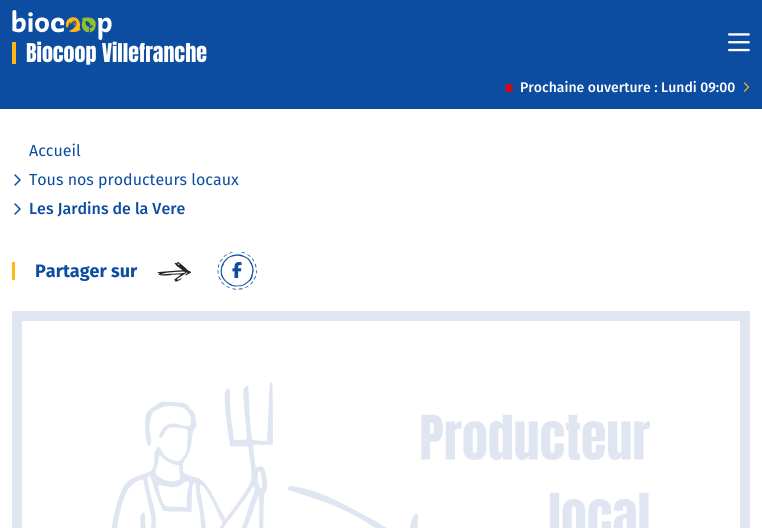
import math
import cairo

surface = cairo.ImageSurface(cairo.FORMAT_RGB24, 762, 528)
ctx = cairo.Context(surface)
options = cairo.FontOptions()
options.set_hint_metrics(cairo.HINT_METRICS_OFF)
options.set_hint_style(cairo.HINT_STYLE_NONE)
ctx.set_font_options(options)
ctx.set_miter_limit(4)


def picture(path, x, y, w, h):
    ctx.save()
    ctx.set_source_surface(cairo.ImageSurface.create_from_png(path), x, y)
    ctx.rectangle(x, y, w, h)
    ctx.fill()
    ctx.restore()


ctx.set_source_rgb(1, 1, 1)
ctx.paint()
ctx.set_source_rgb(0.047, 0.302, 0.635)
ctx.rectangle(0, 0, 762, 109)
ctx.fill()
picture("img1.png", 12, 10, 100, 30)
ctx.set_source_rgb(0.992, 0.722, 0.075)
ctx.rectangle(12, 42, 4, 22)
ctx.fill()
ctx.select_font_face("Anton")
ctx.set_font_size(22)
ctx.set_source_rgb(1, 1, 1)
ctx.move_to(26, 62)
ctx.show_text("Biocoop Villefranche")
picture("img2.png", 728, 33, 22, 19)
ctx.set_source_rgb(0.855, 0.031, 0.071)
ctx.arc(509, 88, 4, 0, 2 * math.pi)
ctx.fill()
ctx.select_font_face("Fira Sans Medium")
ctx.set_font_size(14)
ctx.set_source_rgb(1, 1, 1)
ctx.move_to(520, 92)
ctx.show_text("Prochaine ouverture : Lundi 09:00")
picture("img3.png", 743, 82, 7, 10)
ctx.select_font_face("Fira Sans")
ctx.set_font_size(16)
ctx.set_source_rgb(0.047, 0.302, 0.635)
ctx.move_to(29, 156)
ctx.show_text("Accueil")
picture("img4.png", 14, 174, 7, 12)
ctx.move_to(29, 185)
ctx.show_text("Tous nos producteurs locaux")
picture("img4.png", 14, 203, 7, 12)
ctx.select_font_face("Fira Sans Medium")
ctx.move_to(29, 214)
ctx.show_text("Les Jardins de la Vere")
ctx.set_source_rgb(0.992, 0.722, 0.075)
ctx.rectangle(12, 262, 3, 18)
ctx.fill()
ctx.select_font_face("Fira Sans", cairo.FONT_SLANT_NORMAL, cairo.FONT_WEIGHT_BOLD)
ctx.set_font_size(18)
ctx.set_source_rgb(0.047, 0.302, 0.635)
ctx.move_to(35, 277)
ctx.show_text("Partager sur")
picture("img5.png", 157, 261, 35, 21)
picture("img6.png", 217, 252, 40, 38)
picture("img7.png", 232, 262, 10, 16)
ctx.rectangle(17, 316, 728, 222)
ctx.set_source_rgb(0.875, 0.898, 0.945)
ctx.set_line_width(10)
ctx.stroke()
picture("img8.png", 111, 382, 539, 146)
surface.write_to_png("page.png")
